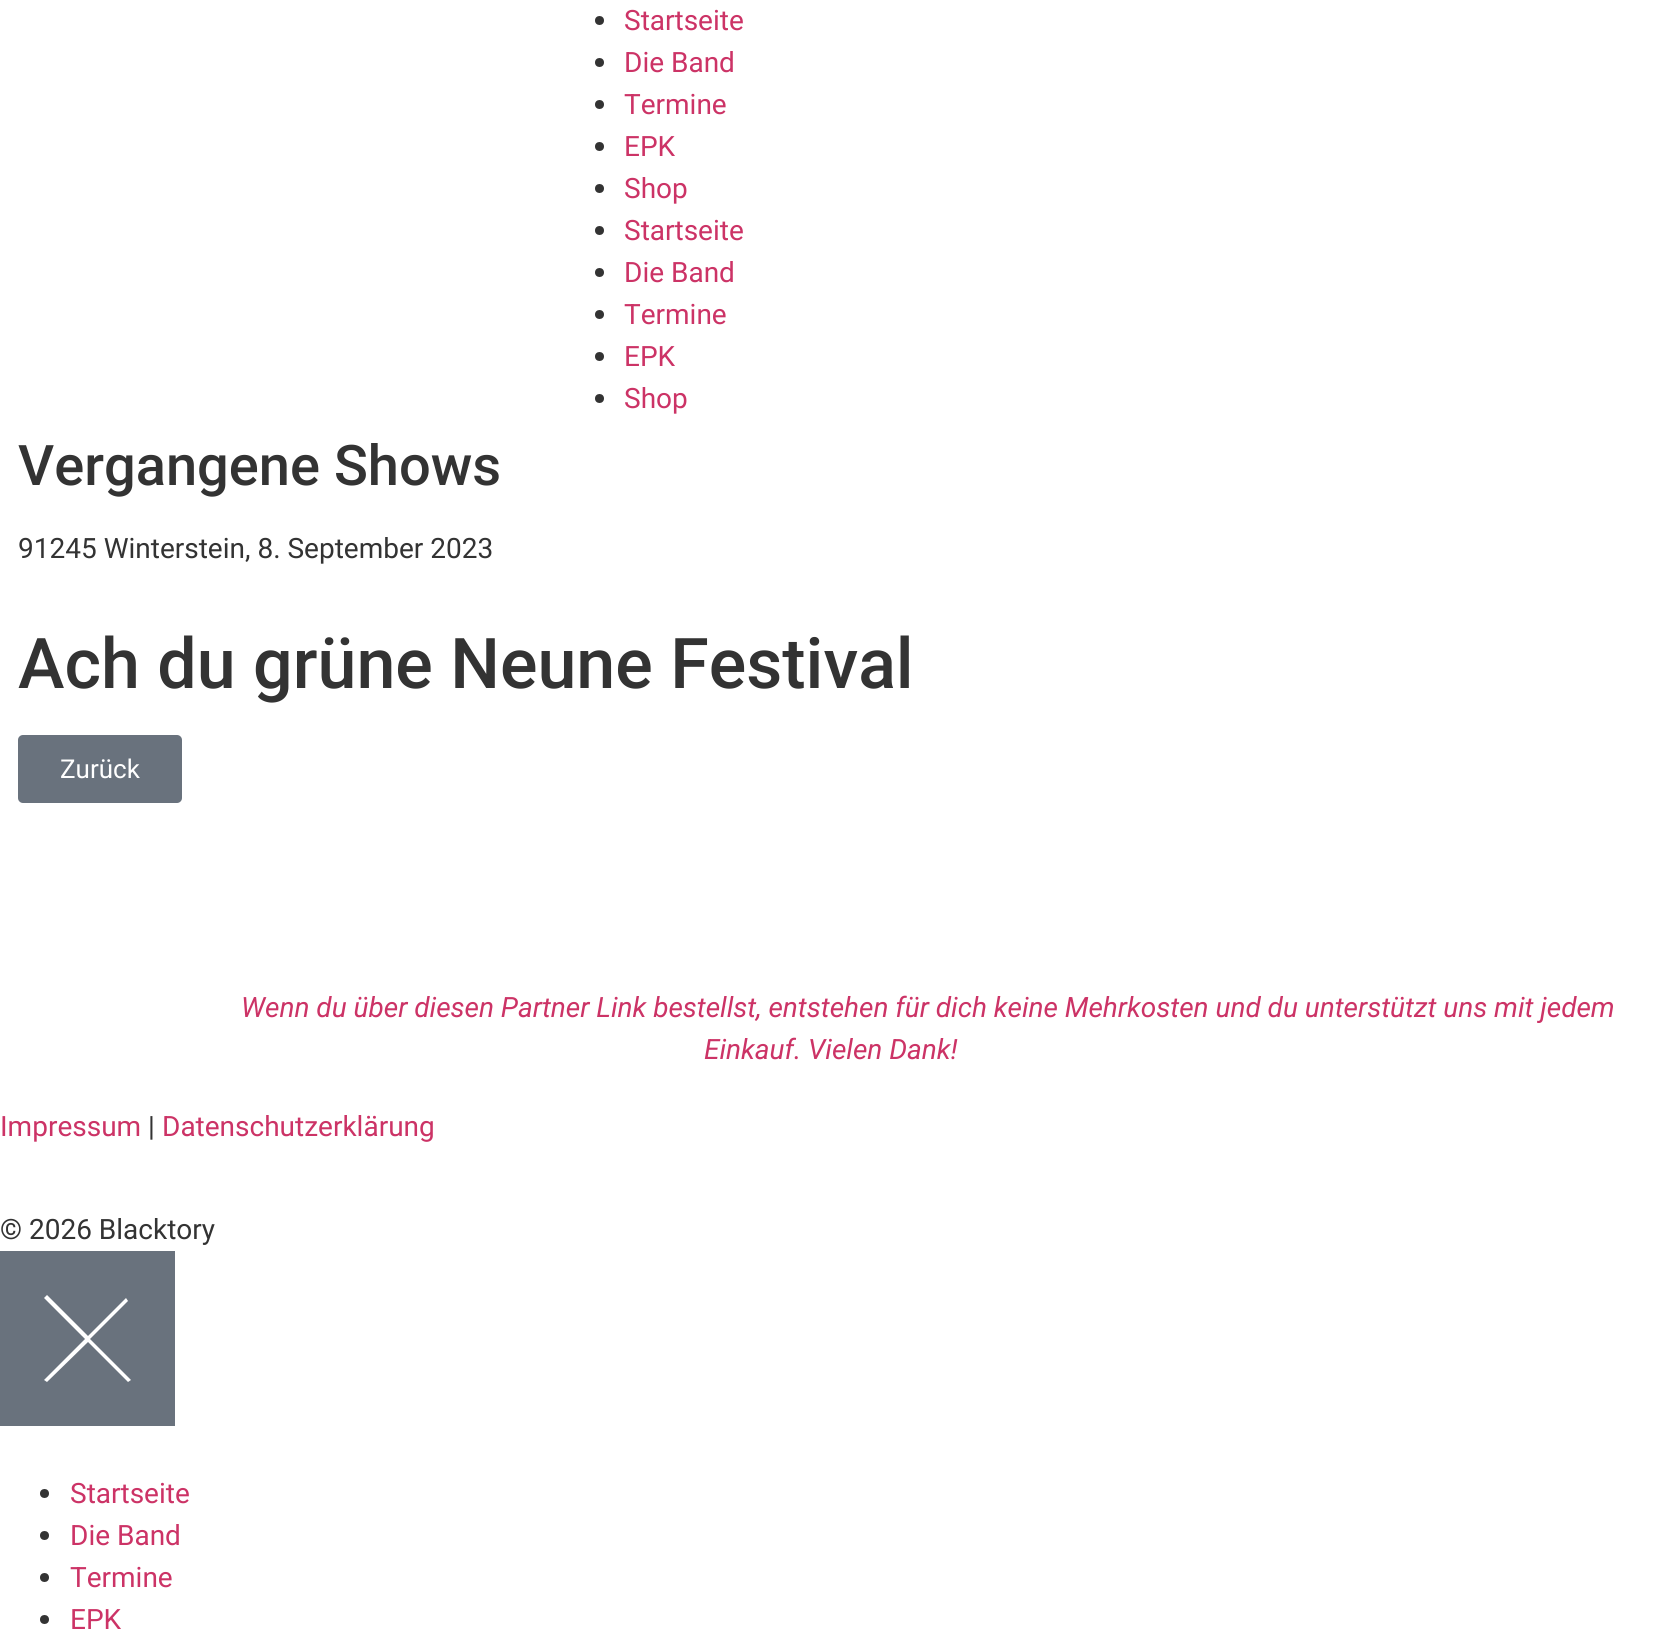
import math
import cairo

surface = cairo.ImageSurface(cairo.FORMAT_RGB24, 1662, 1642)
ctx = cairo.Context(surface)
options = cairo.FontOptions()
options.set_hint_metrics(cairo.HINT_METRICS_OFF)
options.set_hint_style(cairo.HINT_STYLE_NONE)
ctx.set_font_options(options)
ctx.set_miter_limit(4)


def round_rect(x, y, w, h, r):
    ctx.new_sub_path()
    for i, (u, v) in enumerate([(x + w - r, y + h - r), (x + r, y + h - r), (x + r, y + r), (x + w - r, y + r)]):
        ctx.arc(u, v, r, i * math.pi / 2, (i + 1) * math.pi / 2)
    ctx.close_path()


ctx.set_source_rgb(1, 1, 1)
ctx.paint()
ctx.set_source_rgb(0.2, 0.2, 0.2)
ctx.arc(599.5, 20.5, 4.5, 0, 2 * math.pi)
ctx.fill()
ctx.select_font_face("Roboto")
ctx.set_font_size(28)
ctx.set_source_rgb(0.8, 0.2, 0.4)
ctx.move_to(624, 30)
ctx.show_text("Startseite")
ctx.set_source_rgb(0.2, 0.2, 0.2)
ctx.new_path()
ctx.arc(599.5, 62.5, 4.5, 0, 2 * math.pi)
ctx.fill()
ctx.set_source_rgb(0.8, 0.2, 0.4)
ctx.move_to(624, 72)
ctx.show_text("Die Band")
ctx.set_source_rgb(0.2, 0.2, 0.2)
ctx.new_path()
ctx.arc(599.5, 104.5, 4.5, 0, 2 * math.pi)
ctx.fill()
ctx.set_source_rgb(0.8, 0.2, 0.4)
ctx.move_to(624, 114)
ctx.show_text("Termine")
ctx.set_source_rgb(0.2, 0.2, 0.2)
ctx.new_path()
ctx.arc(599.5, 146.5, 4.5, 0, 2 * math.pi)
ctx.fill()
ctx.set_source_rgb(0.8, 0.2, 0.4)
ctx.move_to(624, 156)
ctx.show_text("EPK")
ctx.set_source_rgb(0.2, 0.2, 0.2)
ctx.new_path()
ctx.arc(599.5, 188.5, 4.5, 0, 2 * math.pi)
ctx.fill()
ctx.set_source_rgb(0.8, 0.2, 0.4)
ctx.move_to(624, 198)
ctx.show_text("Shop")
ctx.set_source_rgb(0.2, 0.2, 0.2)
ctx.new_path()
ctx.arc(599.5, 230.5, 4.5, 0, 2 * math.pi)
ctx.fill()
ctx.set_source_rgb(0.8, 0.2, 0.4)
ctx.move_to(624, 240)
ctx.show_text("Startseite")
ctx.set_source_rgb(0.2, 0.2, 0.2)
ctx.new_path()
ctx.arc(599.5, 272.5, 4.5, 0, 2 * math.pi)
ctx.fill()
ctx.set_source_rgb(0.8, 0.2, 0.4)
ctx.move_to(624, 282)
ctx.show_text("Die Band")
ctx.set_source_rgb(0.2, 0.2, 0.2)
ctx.new_path()
ctx.arc(599.5, 314.5, 4.5, 0, 2 * math.pi)
ctx.fill()
ctx.set_source_rgb(0.8, 0.2, 0.4)
ctx.move_to(624, 324)
ctx.show_text("Termine")
ctx.set_source_rgb(0.2, 0.2, 0.2)
ctx.new_path()
ctx.arc(599.5, 356.5, 4.5, 0, 2 * math.pi)
ctx.fill()
ctx.set_source_rgb(0.8, 0.2, 0.4)
ctx.move_to(624, 366)
ctx.show_text("EPK")
ctx.set_source_rgb(0.2, 0.2, 0.2)
ctx.new_path()
ctx.arc(599.5, 398.5, 4.5, 0, 2 * math.pi)
ctx.fill()
ctx.set_source_rgb(0.8, 0.2, 0.4)
ctx.move_to(624, 408)
ctx.show_text("Shop")
ctx.select_font_face("Roboto Medium")
ctx.set_font_size(56)
ctx.set_source_rgb(0.2, 0.2, 0.2)
ctx.move_to(18, 485)
ctx.show_text("Vergangene Shows")
ctx.select_font_face("Roboto")
ctx.set_font_size(28)
ctx.move_to(18, 558)
ctx.show_text("91245 Winterstein, 8. September 2023")
ctx.select_font_face("Roboto Medium")
ctx.set_font_size(70)
ctx.move_to(18, 688)
ctx.show_text("Ach du grüne Neune Festival")
ctx.set_source_rgb(0.412, 0.447, 0.49)
round_rect(18, 735, 164, 68, 5)
ctx.fill()
ctx.select_font_face("Roboto")
ctx.set_font_size(26)
ctx.set_source_rgb(1, 1, 1)
ctx.move_to(60, 778)
ctx.show_text("Zurück")
ctx.select_font_face("Roboto", cairo.FONT_SLANT_ITALIC)
ctx.set_font_size(28)
ctx.set_source_rgb(0.8, 0.2, 0.4)
ctx.move_to(241, 1017)
ctx.show_text("Wenn du über diesen Partner Link bestellst, entstehen für dich keine Mehrkosten und du unterstützt uns mit jedem")
ctx.move_to(704, 1059)
ctx.show_text("Einkauf. Vielen Dank!")
ctx.select_font_face("Roboto")
ctx.move_to(0, 1136)
ctx.show_text("Impressum")
ctx.set_source_rgb(0.2, 0.2, 0.2)
ctx.move_to(148, 1136)
ctx.show_text("|")
ctx.set_source_rgb(0.8, 0.2, 0.4)
ctx.move_to(162, 1136)
ctx.show_text("Datenschutzerklärung")
ctx.set_source_rgb(0.2, 0.2, 0.2)
ctx.move_to(0, 1239)
ctx.show_text("© 2026 Blacktory")
ctx.set_source_rgb(0.412, 0.447, 0.49)
ctx.rectangle(0, 1251, 175, 175)
ctx.fill()
ctx.set_source_rgb(1, 1, 1)
ctx.new_path()
ctx.move_to(131, 1380)
ctx.line_to(90, 1339)
ctx.line_to(128, 1301)
ctx.line_to(126, 1298)
ctx.line_to(88, 1336)
ctx.line_to(47, 1295)
ctx.line_to(44, 1298)
ctx.line_to(85, 1339)
ctx.line_to(44, 1380)
ctx.line_to(47, 1382)
ctx.line_to(88, 1342)
ctx.line_to(128, 1382)
ctx.close_path()
ctx.fill()
ctx.set_source_rgb(0.2, 0.2, 0.2)
ctx.arc(44.5, 1493.5, 4.5, 0, 2 * math.pi)
ctx.fill()
ctx.set_source_rgb(0.8, 0.2, 0.4)
ctx.move_to(70, 1503)
ctx.show_text("Startseite")
ctx.set_source_rgb(0.2, 0.2, 0.2)
ctx.new_path()
ctx.arc(44.5, 1535.5, 4.5, 0, 2 * math.pi)
ctx.fill()
ctx.set_source_rgb(0.8, 0.2, 0.4)
ctx.move_to(70, 1545)
ctx.show_text("Die Band")
ctx.set_source_rgb(0.2, 0.2, 0.2)
ctx.new_path()
ctx.arc(44.5, 1577.5, 4.5, 0, 2 * math.pi)
ctx.fill()
ctx.set_source_rgb(0.8, 0.2, 0.4)
ctx.move_to(70, 1587)
ctx.show_text("Termine")
ctx.set_source_rgb(0.2, 0.2, 0.2)
ctx.new_path()
ctx.arc(44.5, 1619.5, 4.5, 0, 2 * math.pi)
ctx.fill()
ctx.set_source_rgb(0.8, 0.2, 0.4)
ctx.move_to(70, 1629)
ctx.show_text("EPK")
surface.write_to_png("page.png")
